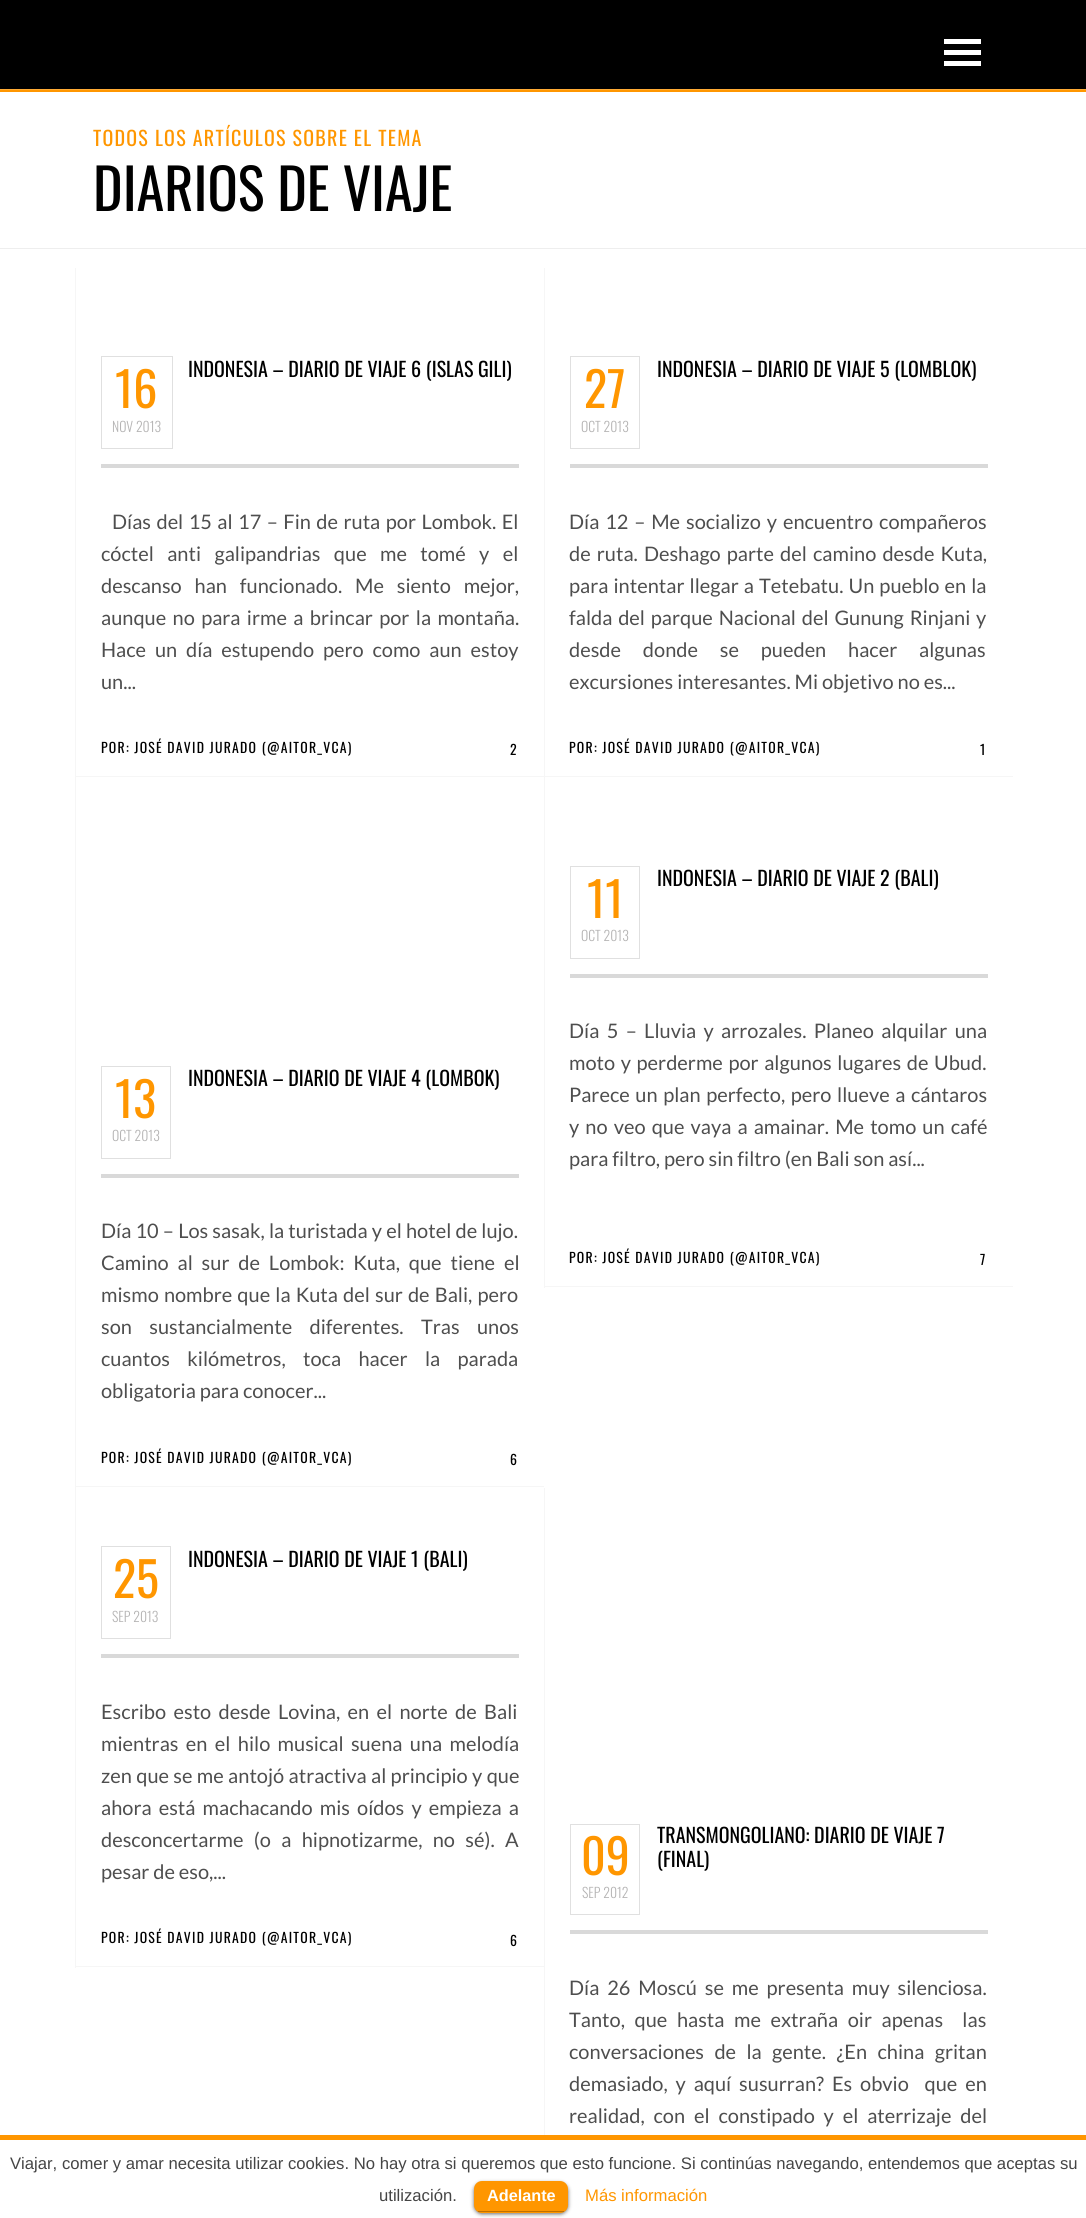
import math
import cairo

surface = cairo.ImageSurface(cairo.FORMAT_RGB24, 1086, 2218)
ctx = cairo.Context(surface)
options = cairo.FontOptions()
options.set_hint_metrics(cairo.HINT_METRICS_OFF)
options.set_hint_style(cairo.HINT_STYLE_NONE)
ctx.set_font_options(options)
ctx.set_miter_limit(4)


def spaced_text(x, y, s, letter, word):
    ctx.move_to(x, y)
    for ch in s:
        ctx.show_text(ch)
        ctx.rel_move_to(letter + word * (ch == ' '), 0)


def round_rect(x, y, w, h, r):
    ctx.new_sub_path()
    for i, (u, v) in enumerate([(x + w - r, y + h - r), (x + r, y + h - r), (x + r, y + r), (x + w - r, y + r)]):
        ctx.arc(u, v, r, i * math.pi / 2, (i + 1) * math.pi / 2)
    ctx.close_path()


def shadow(x, y, w, h, r, blur, alpha):
    ctx.push_group_with_content(cairo.CONTENT_ALPHA)
    ctx.set_operator(cairo.OPERATOR_SOURCE)
    for i in range(15, -16, -2):
        e = blur * i / 6
        if min(w, h) + 2 * e > 0:
            ctx.set_source_rgba(0, 0, 0, alpha * math.erfc((i - 1) / 8.5) / 2)
            round_rect(x - e, y - e, w + 2 * e, h + 2 * e, max(0, min(r + e + blur * .6, min(w, h) / 2 + e)))
            ctx.fill()
    ctx.mask(ctx.pop_group())


ctx.set_source_rgb(1, 1, 1)
ctx.paint()
ctx.set_source_rgb(0, 0, 0)
ctx.rectangle(0, 0, 1086, 89)
ctx.fill()
ctx.set_source_rgb(1, 1, 1)
ctx.rectangle(944, 39, 37, 5)
ctx.fill()
ctx.rectangle(944, 50, 37, 5)
ctx.fill()
ctx.rectangle(944, 61, 37, 5)
ctx.fill()
ctx.set_source_rgb(1, 0.588, 0)
ctx.rectangle(0, 90, 1086, 2)
ctx.fill()
ctx.set_source_rgb(1, 0.675, 0.212)
ctx.rectangle(0, 89, 1086, 1)
ctx.fill()
ctx.set_source_rgb(0.933, 0.933, 0.933)
ctx.rectangle(0, 248, 1086, 1)
ctx.fill()
ctx.select_font_face("Oswald")
ctx.set_font_size(20)
ctx.set_source_rgb(1, 0.588, 0)
spaced_text(93, 146, "TODOS LOS ARTÍCULOS SOBRE EL TEMA", 1.25, 0)
ctx.set_font_size(56.25)
ctx.set_source_rgb(0, 0, 0)
ctx.move_to(93, 211)
ctx.show_text("DIARIOS DE VIAJE")
ctx.set_source_rgb(0.961, 0.961, 0.961)
ctx.rectangle(75, 776, 938, 1)
ctx.fill()
ctx.rectangle(75, 268, 1, 510)
ctx.fill()
ctx.rectangle(101.5, 356.5, 71, 92)
ctx.set_source_rgb(0.878, 0.878, 0.878)
ctx.set_line_width(1)
ctx.stroke()
ctx.set_font_size(48)
ctx.set_source_rgb(1, 0.588, 0)
ctx.move_to(115, 408)
ctx.show_text("16")
ctx.select_font_face("Oswald Light")
ctx.set_font_size(13.75)
ctx.set_source_rgb(0.71, 0.706, 0.706)
ctx.move_to(112, 432)
ctx.show_text("NOV 2013")
ctx.select_font_face("Oswald")
ctx.set_font_size(20)
ctx.set_source_rgb(0, 0, 0)
ctx.move_to(188, 377)
ctx.show_text("INDONESIA – DIARIO DE VIAJE 6 (ISLAS GILI)")
ctx.set_source_rgb(0.851, 0.851, 0.851)
ctx.rectangle(101, 464, 418, 4)
ctx.fill()
ctx.select_font_face("Lato")
ctx.set_source_rgb(0.306, 0.306, 0.306)
spaced_text(112, 529, "Días del 15 al 17 – Fin de ruta por Lombok. El", 0, 1.6)
spaced_text(101, 561, "cóctel anti galipandrias que me tomé y el", 0, 9.5)
spaced_text(101, 593, "descanso han funcionado. Me siento mejor,", 0, 9)
spaced_text(101, 625, "aunque no para irme a brincar por la montaña.", 0, 2.5)
spaced_text(101, 657, "Hace un día estupendo pero como aun estoy", 0, 5)
ctx.move_to(101, 689)
ctx.show_text("un...")
ctx.select_font_face("Oswald")
ctx.set_font_size(13.75)
ctx.set_source_rgb(0, 0, 0)
spaced_text(101, 753, "POR: JOSÉ DAVID JURADO (@AITOR_VCA)", 1.25, 0)
spaced_text(510, 755, "2", 1.25, 0)
ctx.set_source_rgb(0.961, 0.961, 0.961)
ctx.rectangle(544, 268, 1, 510)
ctx.fill()
ctx.rectangle(570.5, 356.5, 69, 92)
ctx.set_source_rgb(0.878, 0.878, 0.878)
ctx.stroke()
ctx.set_font_size(48)
ctx.set_source_rgb(1, 0.588, 0)
ctx.move_to(584, 408)
ctx.show_text("27")
ctx.select_font_face("Oswald Light")
ctx.set_font_size(13.75)
ctx.set_source_rgb(0.71, 0.706, 0.706)
ctx.move_to(581, 432)
ctx.show_text("OCT 2013")
ctx.select_font_face("Oswald")
ctx.set_font_size(20)
ctx.set_source_rgb(0, 0, 0)
ctx.move_to(657, 377)
ctx.show_text("INDONESIA – DIARIO DE VIAJE 5 (LOMBLOK)")
ctx.set_source_rgb(0.851, 0.851, 0.851)
ctx.rectangle(570, 464, 418, 4)
ctx.fill()
ctx.select_font_face("Lato")
ctx.set_source_rgb(0.306, 0.306, 0.306)
spaced_text(569, 529, "Día 12 – Me socializo y encuentro compañeros", 0, 2)
spaced_text(569, 561, "de ruta. Deshago parte del camino desde Kuta,", 0, 2.25)
spaced_text(569, 593, "para intentar llegar a Tetebatu. Un pueblo en la", 0, 1.25)
spaced_text(569, 625, "falda del parque Nacional del Gunung Rinjani y", 0, 2)
spaced_text(569, 657, "desde donde se pueden hacer algunas", 0, 18)
ctx.move_to(569, 689)
ctx.show_text("excursiones interesantes. Mi objetivo no es...")
ctx.select_font_face("Oswald")
ctx.set_font_size(13.75)
ctx.set_source_rgb(0, 0, 0)
spaced_text(569, 753, "POR: JOSÉ DAVID JURADO (@AITOR_VCA)", 1.25, 0)
spaced_text(980, 755, "1", 1.25, 0)
ctx.set_source_rgb(0.961, 0.961, 0.961)
ctx.rectangle(75, 1486, 469, 1)
ctx.fill()
ctx.rectangle(75, 778, 1, 710)
ctx.fill()
ctx.rectangle(101.5, 1066.5, 69, 92)
ctx.set_source_rgb(0.878, 0.878, 0.878)
ctx.stroke()
ctx.set_font_size(48)
ctx.set_source_rgb(1, 0.588, 0)
ctx.move_to(115, 1118)
ctx.show_text("13")
ctx.select_font_face("Oswald Light")
ctx.set_font_size(13.75)
ctx.set_source_rgb(0.71, 0.706, 0.706)
ctx.move_to(112, 1141)
ctx.show_text("OCT 2013")
ctx.select_font_face("Oswald")
ctx.set_font_size(20)
ctx.set_source_rgb(0, 0, 0)
ctx.move_to(188, 1086)
ctx.show_text("INDONESIA – DIARIO DE VIAJE 4 (LOMBOK)")
ctx.set_source_rgb(0.851, 0.851, 0.851)
ctx.rectangle(101, 1174, 418, 4)
ctx.fill()
ctx.select_font_face("Lato")
ctx.set_source_rgb(0.306, 0.306, 0.306)
spaced_text(101, 1238, "Día 10 – Los sasak, la turistada y el hotel de lujo.", 0, 0.3)
spaced_text(101, 1270, "Camino al sur de Lombok: Kuta, que tiene el", 0, 5)
spaced_text(101, 1302, "mismo nombre que la Kuta del sur de Bali, pero", 0, 1.25)
spaced_text(101, 1334, "son sustancialmente diferentes. Tras unos", 0, 13.5)
spaced_text(101, 1366, "cuantos kilómetros, toca hacer la parada", 0, 13.5)
ctx.move_to(101, 1398)
ctx.show_text("obligatoria para conocer...")
ctx.select_font_face("Oswald")
ctx.set_font_size(13.75)
ctx.set_source_rgb(0, 0, 0)
spaced_text(101, 1463, "POR: JOSÉ DAVID JURADO (@AITOR_VCA)", 1.25, 0)
spaced_text(510, 1465, "6", 1.25, 0)
ctx.set_source_rgb(0.961, 0.961, 0.961)
ctx.rectangle(544, 1286, 469, 1)
ctx.fill()
ctx.rectangle(544, 778, 1, 510)
ctx.fill()
ctx.rectangle(570.5, 866.5, 69, 92)
ctx.set_source_rgb(0.878, 0.878, 0.878)
ctx.stroke()
ctx.set_font_size(48)
ctx.set_source_rgb(1, 0.588, 0)
ctx.move_to(587, 918)
ctx.show_text("11")
ctx.select_font_face("Oswald Light")
ctx.set_font_size(13.75)
ctx.set_source_rgb(0.71, 0.706, 0.706)
ctx.move_to(581, 941)
ctx.show_text("OCT 2013")
ctx.select_font_face("Oswald")
ctx.set_font_size(20)
ctx.set_source_rgb(0, 0, 0)
ctx.move_to(657, 886)
ctx.show_text("INDONESIA – DIARIO DE VIAJE 2 (BALI)")
ctx.set_source_rgb(0.851, 0.851, 0.851)
ctx.rectangle(570, 974, 418, 4)
ctx.fill()
ctx.select_font_face("Lato")
ctx.set_source_rgb(0.306, 0.306, 0.306)
spaced_text(569, 1038, "Día 5 – Lluvia y arrozales. Planeo alquilar una", 0, 3.5)
spaced_text(569, 1070, "moto y perderme por algunos lugares de Ubud.", 0, 1.75)
spaced_text(569, 1102, "Parece un plan perfecto, pero llueve a cántaros", 0, 1.75)
spaced_text(569, 1134, "y no veo que vaya a amainar. Me tomo un café", 0, 2.25)
ctx.move_to(569, 1166)
ctx.show_text("para filtro, pero sin filtro (en Bali son así...")
ctx.select_font_face("Oswald")
ctx.set_font_size(13.75)
ctx.set_source_rgb(0, 0, 0)
spaced_text(569, 1263, "POR: JOSÉ DAVID JURADO (@AITOR_VCA)", 1.25, 0)
spaced_text(980, 1265, "7", 1.25, 0)
ctx.set_source_rgb(0.961, 0.961, 0.961)
ctx.rectangle(75, 1966, 469, 1)
ctx.fill()
ctx.rectangle(75, 1488, 1, 480)
ctx.fill()
ctx.rectangle(101.5, 1546.5, 69, 92)
ctx.set_source_rgb(0.878, 0.878, 0.878)
ctx.stroke()
ctx.set_font_size(48)
ctx.set_source_rgb(1, 0.588, 0)
ctx.move_to(113, 1598)
ctx.show_text("25")
ctx.select_font_face("Oswald Light")
ctx.set_font_size(13.75)
ctx.set_source_rgb(0.71, 0.706, 0.706)
ctx.move_to(112, 1622)
ctx.show_text("SEP 2013")
ctx.select_font_face("Oswald")
ctx.set_font_size(20)
ctx.set_source_rgb(0, 0, 0)
ctx.move_to(188, 1567)
ctx.show_text("INDONESIA – DIARIO DE VIAJE 1 (BALI)")
ctx.set_source_rgb(0.851, 0.851, 0.851)
ctx.rectangle(101, 1654, 418, 4)
ctx.fill()
ctx.select_font_face("Lato")
ctx.set_source_rgb(0.306, 0.306, 0.306)
spaced_text(101, 1719, "Escribo esto desde Lovina, en el norte de Bali", 0, 3.5)
spaced_text(101, 1751, "mientras en el hilo musical suena una melodía", 0, 3.5)
spaced_text(101, 1783, "zen que se me antojó atractiva al principio y que", 0, 0.5)
spaced_text(101, 1815, "ahora está machacando mis oídos y empieza a", 0, 3.25)
spaced_text(101, 1847, "desconcertarme (o a hipnotizarme, no sé). A", 0, 6.5)
ctx.move_to(101, 1879)
ctx.show_text("pesar de eso,...")
ctx.select_font_face("Oswald")
ctx.set_font_size(13.75)
ctx.set_source_rgb(0, 0, 0)
spaced_text(101, 1943, "POR: JOSÉ DAVID JURADO (@AITOR_VCA)", 1.25, 0)
spaced_text(510, 1946, "6", 1.25, 0)
ctx.set_source_rgb(0.961, 0.961, 0.961)
ctx.rectangle(544, 1488, 1, 647)
ctx.fill()
ctx.rectangle(570.5, 1824.5, 69, 90)
ctx.set_source_rgb(0.878, 0.878, 0.878)
ctx.stroke()
ctx.set_font_size(48)
ctx.set_source_rgb(1, 0.588, 0)
ctx.move_to(581, 1875)
ctx.show_text("09")
ctx.select_font_face("Oswald Light")
ctx.set_font_size(13.75)
ctx.set_source_rgb(0.71, 0.706, 0.706)
ctx.move_to(582, 1898)
ctx.show_text("SEP 2012")
ctx.select_font_face("Oswald")
ctx.set_font_size(20)
ctx.set_source_rgb(0, 0, 0)
ctx.move_to(657, 1843)
ctx.show_text("TRANSMONGOLIANO: DIARIO DE VIAJE 7")
ctx.move_to(657, 1867)
ctx.show_text("(FINAL)")
ctx.set_source_rgb(0.851, 0.851, 0.851)
ctx.rectangle(570, 1930, 418, 4)
ctx.fill()
ctx.select_font_face("Lato")
ctx.set_source_rgb(0.306, 0.306, 0.306)
spaced_text(569, 1995, "Día 26 Moscú se me presenta muy silenciosa.", 0, 4)
spaced_text(569, 2027, "Tanto, que hasta me extraña oir apenas  las", 0, 5.75)
spaced_text(569, 2059, "conversaciones de la gente. ¿En china gritan", 0, 6.5)
spaced_text(569, 2091, "demasiado, y aquí susurran? Es obvio  que en", 0, 4)
spaced_text(569, 2123, "realidad, con el constipado y el aterrizaje del", 0, 5)
ctx.set_source_rgb(1, 0.588, 0)
ctx.rectangle(0, 2135, 1086, 5)
ctx.fill()
ctx.select_font_face("Liberation Sans")
ctx.set_font_size(16.67)
ctx.set_source_rgb(0.271, 0.271, 0.271)
ctx.move_to(10, 2169)
ctx.show_text("Viajar, comer y amar necesita utilizar cookies. No hay otra si queremos que esto funcione. Si continúas navegando, entendemos que aceptas su")
ctx.move_to(379, 2201)
ctx.show_text("utilización.")
ctx.set_source_rgb(0, 0, 0)
shadow(474, 2183, 94, 31, 8, 2, 0.6)
ctx.set_source_rgb(1, 0.588, 0)
round_rect(474, 2181, 94, 32, 8)
ctx.fill()
ctx.set_source_rgba(0, 0, 0, 0.25)
ctx.rectangle(478, 2211, 86, 1)
ctx.fill()
ctx.select_font_face("Liberation Sans", cairo.FONT_SLANT_NORMAL, cairo.FONT_WEIGHT_BOLD)
ctx.set_font_size(16.25)
ctx.set_source_rgb(1, 1, 1)
ctx.move_to(487, 2201)
ctx.show_text("Adelante")
ctx.select_font_face("Liberation Sans")
ctx.set_font_size(16.67)
ctx.set_source_rgb(1, 0.588, 0)
ctx.move_to(585, 2201)
ctx.show_text("Más información")
surface.write_to_png("page.png")
